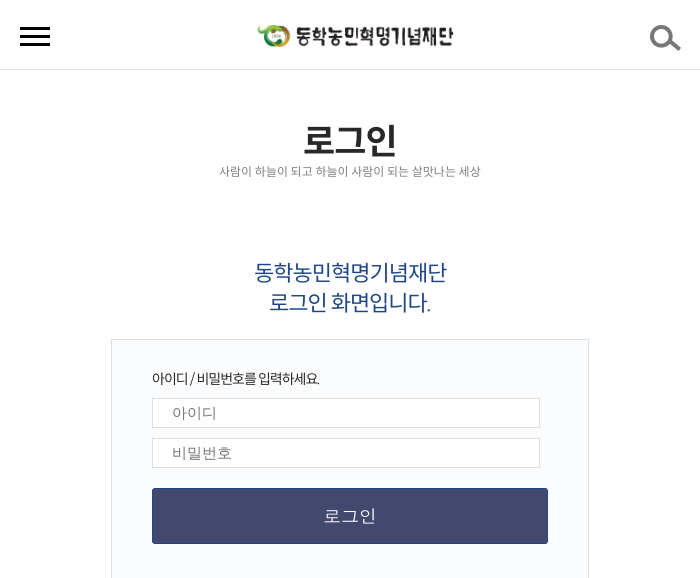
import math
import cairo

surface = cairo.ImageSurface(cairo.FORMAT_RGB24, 700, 578)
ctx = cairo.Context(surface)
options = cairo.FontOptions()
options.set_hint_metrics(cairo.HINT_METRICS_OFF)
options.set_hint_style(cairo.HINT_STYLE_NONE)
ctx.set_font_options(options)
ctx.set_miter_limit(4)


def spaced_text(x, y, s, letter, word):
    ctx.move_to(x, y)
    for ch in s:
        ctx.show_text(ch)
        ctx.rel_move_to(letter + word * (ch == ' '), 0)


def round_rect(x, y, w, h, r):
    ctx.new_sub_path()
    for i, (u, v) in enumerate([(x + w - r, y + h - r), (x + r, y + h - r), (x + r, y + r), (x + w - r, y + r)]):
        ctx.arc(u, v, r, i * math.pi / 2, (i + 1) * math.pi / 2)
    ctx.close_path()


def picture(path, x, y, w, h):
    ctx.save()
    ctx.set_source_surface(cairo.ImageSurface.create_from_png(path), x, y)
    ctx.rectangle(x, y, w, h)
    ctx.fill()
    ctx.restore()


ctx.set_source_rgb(1, 1, 1)
ctx.paint()
ctx.set_source_rgb(0.882, 0.882, 0.882)
ctx.rectangle(0, 69, 700, 1)
ctx.fill()
picture("img1.png", 20, 27, 30, 19)
picture("img2.png", 257, 25, 197, 23)
picture("img3.png", 650, 25, 31, 26)
ctx.select_font_face("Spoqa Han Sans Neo", cairo.FONT_SLANT_NORMAL, cairo.FONT_WEIGHT_BOLD)
ctx.set_font_size(35)
ctx.set_source_rgb(0.157, 0.157, 0.157)
spaced_text(303, 154, "로그인", -1, 0)
ctx.select_font_face("Spoqa Han Sans Neo")
ctx.set_font_size(12)
ctx.set_source_rgb(0.498, 0.49, 0.49)
ctx.move_to(219, 176)
ctx.show_text("사람이 하늘이 되고 하늘이 사람이 되는 살맛나는 세상")
ctx.set_font_size(22)
ctx.set_source_rgb(0.122, 0.278, 0.529)
spaced_text(254, 281, "동학농민혁명기념재단", -1, 0)
spaced_text(269, 311, "로그인 화면입니다.", -1, 0)
ctx.set_source_rgb(0.984, 0.988, 0.992)
ctx.rectangle(111.5, 339.5, 477, 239)
ctx.fill_preserve()
ctx.set_source_rgb(0.875, 0.875, 0.875)
ctx.set_line_width(1)
ctx.stroke()
ctx.set_font_size(14)
ctx.set_source_rgb(0.157, 0.157, 0.157)
spaced_text(152, 384, "아이디 / 비밀번호를 입력하세요.", -1, 0)
ctx.set_source_rgb(1, 1, 1)
ctx.rectangle(152.5, 398.5, 387, 29)
ctx.fill_preserve()
ctx.set_source_rgb(0.875, 0.875, 0.875)
ctx.stroke()
ctx.select_font_face("WenQuanYi Zen Hei Medium")
ctx.set_font_size(15)
ctx.set_source_rgb(0.459, 0.459, 0.459)
ctx.move_to(172, 418)
ctx.show_text("아이디")
ctx.set_source_rgb(1, 1, 1)
ctx.rectangle(152.5, 438.5, 387, 29)
ctx.fill_preserve()
ctx.set_source_rgb(0.875, 0.875, 0.875)
ctx.stroke()
ctx.set_source_rgb(0.459, 0.459, 0.459)
ctx.move_to(172, 458)
ctx.show_text("비밀번호")
ctx.set_source_rgb(0.263, 0.282, 0.435)
round_rect(152.5, 488.5, 395, 55, 2.5)
ctx.fill_preserve()
ctx.set_source_rgb(0.122, 0.278, 0.529)
ctx.stroke()
ctx.select_font_face("Dotum")
ctx.set_font_size(18)
ctx.set_source_rgb(1, 1, 1)
ctx.move_to(323, 523)
ctx.show_text("로그인")
surface.write_to_png("page.png")
